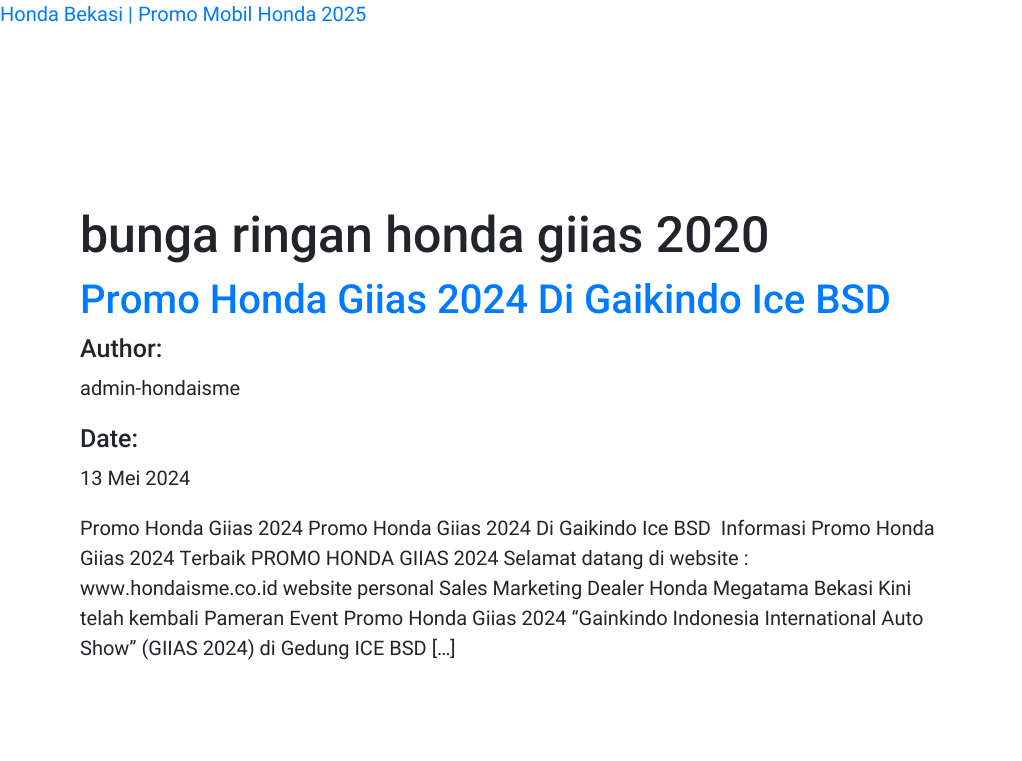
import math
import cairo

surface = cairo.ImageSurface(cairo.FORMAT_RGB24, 1022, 761)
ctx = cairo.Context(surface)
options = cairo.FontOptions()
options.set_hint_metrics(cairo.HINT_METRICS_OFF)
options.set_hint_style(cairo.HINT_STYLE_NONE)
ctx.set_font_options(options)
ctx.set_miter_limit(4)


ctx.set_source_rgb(1, 1, 1)
ctx.paint()
ctx.select_font_face("Roboto")
ctx.set_font_size(20)
ctx.set_source_rgb(0, 0.482, 1)
ctx.move_to(0, 21)
ctx.show_text("Honda Bekasi | Promo Mobil Honda 2025")
ctx.select_font_face("Roboto Medium")
ctx.set_font_size(50)
ctx.set_source_rgb(0.129, 0.145, 0.161)
ctx.move_to(80, 252)
ctx.show_text("bunga ringan honda giias 2020")
ctx.set_font_size(40)
ctx.set_source_rgb(0, 0.482, 1)
ctx.move_to(80, 313)
ctx.show_text("Promo Honda Giias 2024 Di Gaikindo Ice BSD")
ctx.set_font_size(25)
ctx.set_source_rgb(0.129, 0.145, 0.161)
ctx.move_to(80, 357)
ctx.show_text("Author:")
ctx.select_font_face("Roboto")
ctx.set_font_size(20)
ctx.move_to(80, 395)
ctx.show_text("admin-hondaisme")
ctx.select_font_face("Roboto Medium")
ctx.set_font_size(25)
ctx.move_to(80, 447)
ctx.show_text("Date:")
ctx.select_font_face("Roboto")
ctx.set_font_size(20)
ctx.move_to(80, 485)
ctx.show_text("13 Mei 2024")
ctx.move_to(80, 535)
ctx.show_text("Promo Honda Giias 2024 Promo Honda Giias 2024 Di Gaikindo Ice BSD  Informasi Promo Honda")
ctx.move_to(80, 565)
ctx.show_text("Giias 2024 Terbaik PROMO HONDA GIIAS 2024 Selamat datang di website :")
ctx.move_to(80, 595)
ctx.show_text("www.hondaisme.co.id website personal Sales Marketing Dealer Honda Megatama Bekasi Kini")
ctx.move_to(80, 625)
ctx.show_text("telah kembali Pameran Event Promo Honda Giias 2024 “Gainkindo Indonesia International Auto")
ctx.move_to(80, 655)
ctx.show_text("Show” (GIIAS 2024) di Gedung ICE BSD […]")
surface.write_to_png("page.png")
